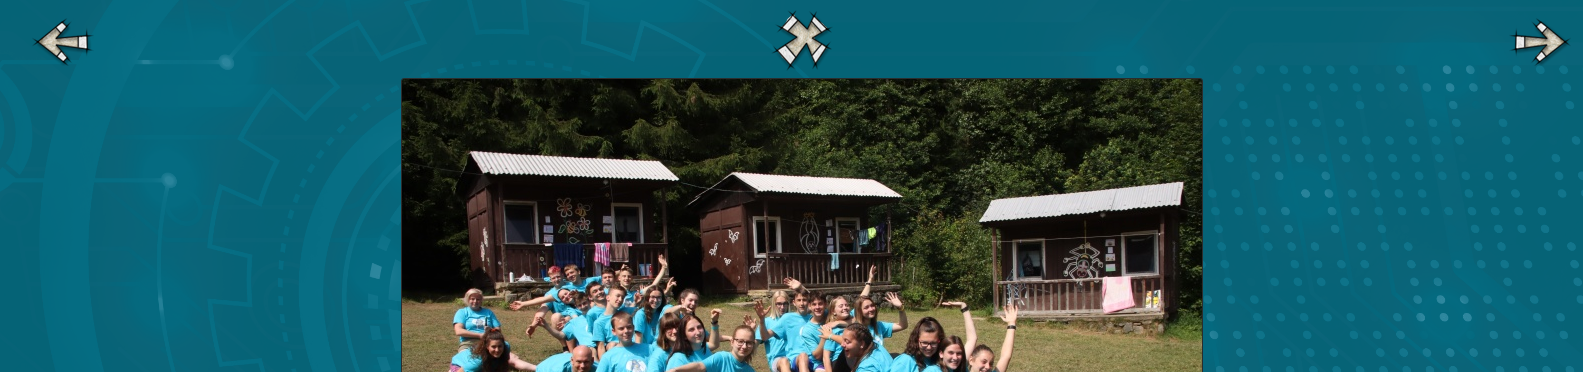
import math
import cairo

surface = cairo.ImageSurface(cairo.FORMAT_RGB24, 1583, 372)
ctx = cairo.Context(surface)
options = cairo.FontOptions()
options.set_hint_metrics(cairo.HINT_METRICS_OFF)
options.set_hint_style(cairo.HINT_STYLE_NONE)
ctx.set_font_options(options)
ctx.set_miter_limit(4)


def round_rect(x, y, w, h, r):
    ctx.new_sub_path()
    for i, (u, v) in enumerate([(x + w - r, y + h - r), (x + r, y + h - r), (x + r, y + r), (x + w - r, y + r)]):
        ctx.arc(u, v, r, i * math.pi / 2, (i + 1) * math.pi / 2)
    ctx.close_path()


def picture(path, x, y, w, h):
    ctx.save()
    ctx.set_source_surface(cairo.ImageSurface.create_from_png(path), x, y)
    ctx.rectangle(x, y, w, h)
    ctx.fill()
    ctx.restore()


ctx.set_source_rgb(1, 1, 1)
ctx.paint()
picture("img1.png", 0, 0, 1583, 372)
picture("img2.png", 32, 18, 62, 48)
picture("img3.png", 771, 10, 62, 61)
picture("img4.png", 1509, 18, 62, 48)
round_rect(401.5, 78.5, 801, 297, 2.5)
ctx.set_source_rgb(0.165, 0.176, 0.18)
ctx.set_line_width(1)
ctx.stroke()
picture("img5.png", 402, 79, 800, 293)
surface.write_to_png("page.png")
